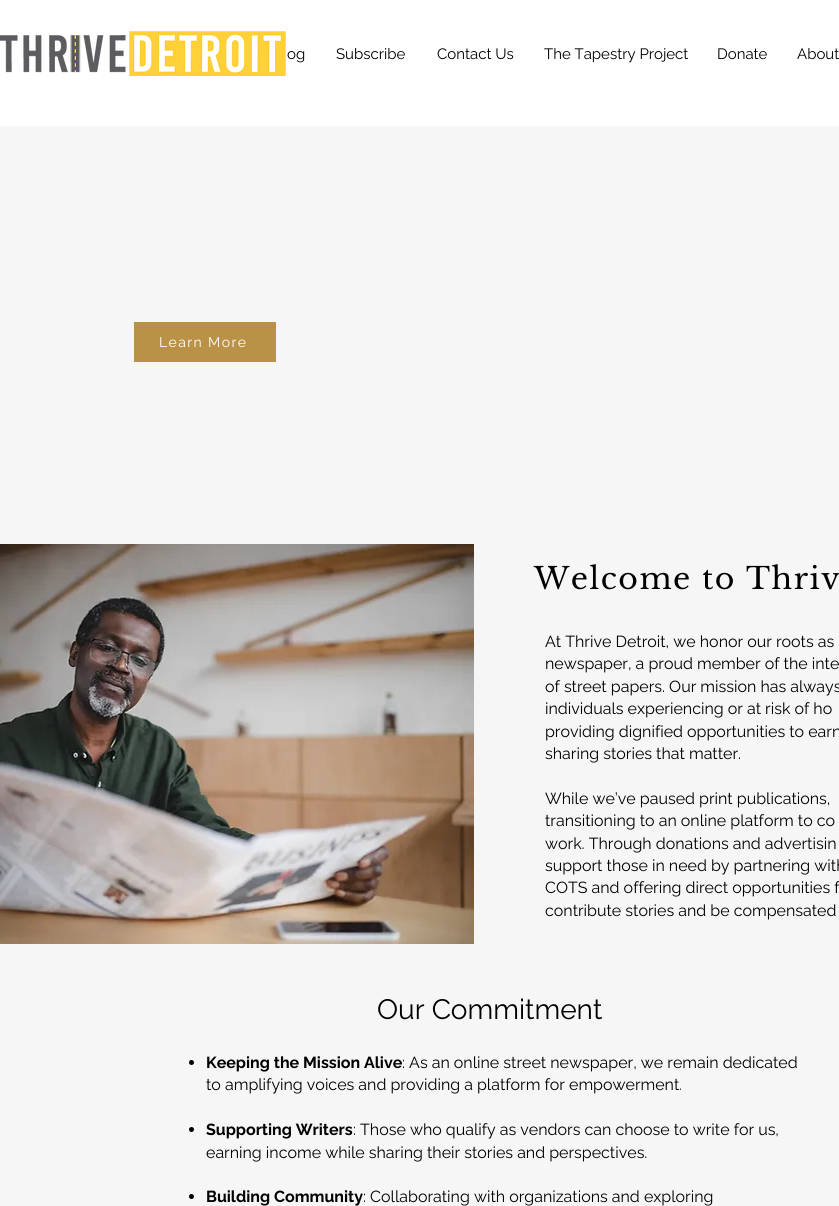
import math
import cairo

surface = cairo.ImageSurface(cairo.FORMAT_RGB24, 839, 1206)
ctx = cairo.Context(surface)
options = cairo.FontOptions()
options.set_hint_metrics(cairo.HINT_METRICS_OFF)
options.set_hint_style(cairo.HINT_STYLE_NONE)
ctx.set_font_options(options)
ctx.set_miter_limit(4)


def spaced_text(x, y, s, letter, word):
    ctx.move_to(x, y)
    for ch in s:
        ctx.show_text(ch)
        ctx.rel_move_to(letter + word * (ch == ' '), 0)


def picture(path, x, y, w, h):
    ctx.save()
    ctx.set_source_surface(cairo.ImageSurface.create_from_png(path), x, y)
    ctx.rectangle(x, y, w, h)
    ctx.fill()
    ctx.restore()


ctx.set_source_rgb(0.961, 0.961, 0.961)
ctx.paint()
ctx.set_source_rgb(1, 1, 1)
ctx.rectangle(0, 0, 839, 126)
ctx.fill()
picture("img1.png", 0, 31, 286, 45)
ctx.select_font_face("Raleway")
ctx.set_font_size(15)
ctx.set_source_rgb(0, 0, 0)
ctx.move_to(287, 59)
ctx.show_text("og")
ctx.move_to(336, 59)
ctx.show_text("Subscribe")
ctx.move_to(437, 59)
ctx.show_text("Contact Us")
ctx.move_to(544, 59)
ctx.show_text("The Tapestry Project")
ctx.move_to(717, 59)
ctx.show_text("Donate")
ctx.move_to(797, 59)
ctx.show_text("About")
ctx.set_source_rgb(0.729, 0.573, 0.278)
ctx.rectangle(134, 322, 142, 40)
ctx.fill()
ctx.set_font_size(14)
ctx.set_source_rgb(1, 1, 1)
spaced_text(159, 347, "Learn More", 1.4, 0)
picture("img2.png", 0, 544, 474, 400)
ctx.select_font_face("Libre Baskerville")
ctx.set_font_size(30)
ctx.set_source_rgb(0, 0, 0)
spaced_text(534, 589, "Welcome to Thriv", 1.5, 0)
ctx.select_font_face("Raleway")
ctx.set_font_size(16)
ctx.move_to(545, 647)
ctx.show_text("At Thrive Detroit, we honor our roots as")
ctx.move_to(545, 669)
ctx.show_text("newspaper, a proud member of the inte")
ctx.move_to(545, 692)
ctx.show_text("of street papers. Our mission has always")
ctx.move_to(545, 714)
ctx.show_text("individuals experiencing or at risk of ho")
ctx.move_to(545, 737)
ctx.show_text("providing dignified opportunities to earn")
ctx.move_to(545, 759)
ctx.show_text("sharing stories that matter.")
ctx.move_to(545, 804)
ctx.show_text("While we’ve paused print publications,")
ctx.move_to(545, 826)
ctx.show_text("transitioning to an online platform to co")
ctx.move_to(545, 849)
ctx.show_text("work. Through donations and advertisin")
ctx.move_to(545, 871)
ctx.show_text("support those in need by partnering with")
ctx.move_to(545, 893)
ctx.show_text("COTS and offering direct opportunities f")
ctx.move_to(545, 916)
ctx.show_text("contribute stories and be compensated")
ctx.set_font_size(28)
ctx.move_to(377, 1019)
ctx.show_text("Our Commitment")
ctx.new_path()
ctx.arc(191.5, 1062.5, 2.5, 0, 2 * math.pi)
ctx.fill()
ctx.select_font_face("Raleway", cairo.FONT_SLANT_NORMAL, cairo.FONT_WEIGHT_BOLD)
ctx.set_font_size(16)
ctx.move_to(206, 1068)
ctx.show_text("Keeping the Mission Alive")
ctx.select_font_face("Raleway")
ctx.move_to(402, 1068)
ctx.show_text(": As an online street newspaper, we remain dedicated")
ctx.move_to(206, 1090)
ctx.show_text("to amplifying voices and providing a platform for empowerment.")
ctx.new_path()
ctx.arc(191.5, 1129.5, 2.5, 0, 2 * math.pi)
ctx.fill()
ctx.select_font_face("Raleway", cairo.FONT_SLANT_NORMAL, cairo.FONT_WEIGHT_BOLD)
ctx.move_to(206, 1135)
ctx.show_text("Supporting Writers")
ctx.select_font_face("Raleway")
ctx.move_to(353, 1135)
ctx.show_text(": Those who qualify as vendors can choose to write for us,")
ctx.move_to(206, 1158)
ctx.show_text("earning income while sharing their stories and perspectives.")
ctx.new_path()
ctx.arc(191.5, 1196.5, 2.5, 0, 2 * math.pi)
ctx.fill()
ctx.select_font_face("Raleway", cairo.FONT_SLANT_NORMAL, cairo.FONT_WEIGHT_BOLD)
ctx.move_to(206, 1202)
ctx.show_text("Building Community")
ctx.select_font_face("Raleway")
ctx.move_to(363, 1202)
ctx.show_text(": Collaborating with organizations and exploring")
surface.write_to_png("page.png")
